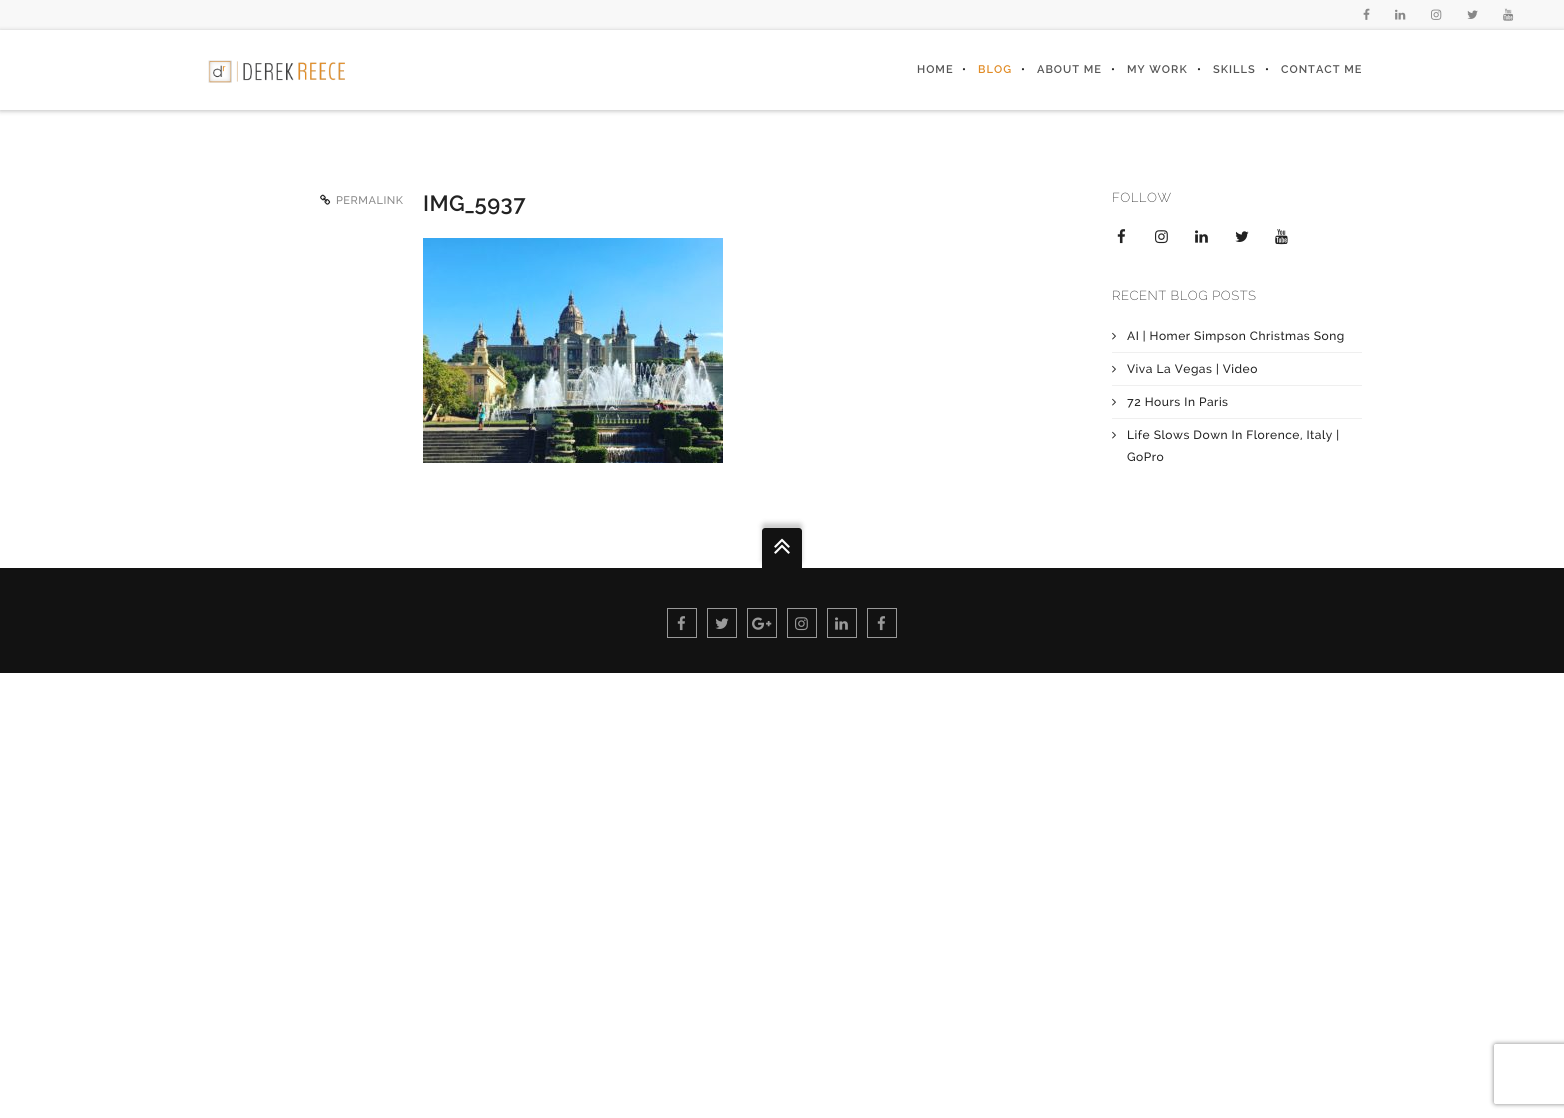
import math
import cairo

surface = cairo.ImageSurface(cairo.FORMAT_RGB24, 1564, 1118)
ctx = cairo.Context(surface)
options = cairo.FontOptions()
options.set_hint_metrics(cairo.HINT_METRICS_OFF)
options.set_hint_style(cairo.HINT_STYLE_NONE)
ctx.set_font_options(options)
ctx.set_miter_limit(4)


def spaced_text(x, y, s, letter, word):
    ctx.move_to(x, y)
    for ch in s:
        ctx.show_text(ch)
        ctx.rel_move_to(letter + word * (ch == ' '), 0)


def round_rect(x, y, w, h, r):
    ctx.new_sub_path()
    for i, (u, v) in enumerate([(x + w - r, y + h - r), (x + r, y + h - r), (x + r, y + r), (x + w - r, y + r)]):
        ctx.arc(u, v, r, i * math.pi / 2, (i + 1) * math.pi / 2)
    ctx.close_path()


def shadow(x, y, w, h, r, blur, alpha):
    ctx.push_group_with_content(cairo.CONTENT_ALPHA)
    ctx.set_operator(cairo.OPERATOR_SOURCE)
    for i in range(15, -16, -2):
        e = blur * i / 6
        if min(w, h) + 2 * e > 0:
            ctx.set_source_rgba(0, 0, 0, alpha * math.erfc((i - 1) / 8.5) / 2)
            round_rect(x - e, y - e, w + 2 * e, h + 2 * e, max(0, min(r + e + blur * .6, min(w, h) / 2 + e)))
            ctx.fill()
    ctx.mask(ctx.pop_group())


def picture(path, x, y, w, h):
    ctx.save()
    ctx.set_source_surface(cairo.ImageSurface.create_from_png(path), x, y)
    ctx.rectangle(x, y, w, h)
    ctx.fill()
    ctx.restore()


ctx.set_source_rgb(1, 1, 1)
ctx.paint()
ctx.set_source_rgb(0.969, 0.969, 0.969)
ctx.rectangle(0, 0, 1564, 30)
ctx.fill()
picture("img1.png", 1363, 8, 7, 12)
picture("img2.png", 1395, 9, 11, 11)
picture("img3.png", 1431, 9, 11, 11)
picture("img4.png", 1467, 10, 11, 9)
picture("img5.png", 1503, 8, 11, 13)
ctx.save()
ctx.set_fill_rule(cairo.FILL_RULE_EVEN_ODD)
ctx.new_path()
ctx.move_to(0, 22)
ctx.line_to(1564, 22)
ctx.line_to(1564, 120)
ctx.line_to(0, 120)
ctx.close_path()
ctx.move_to(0, 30)
ctx.line_to(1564, 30)
ctx.line_to(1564, 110)
ctx.line_to(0, 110)
ctx.close_path()
ctx.clip()
ctx.set_source_rgb(0, 0, 0)
shadow(0, 31, 1564, 80, 0, 2.5, 0.25)
ctx.restore()
picture("img6.png", 208, 60, 137, 23)
ctx.select_font_face("Raleway SemiBold")
ctx.set_font_size(11)
ctx.set_source_rgb(0.333, 0.333, 0.333)
spaced_text(917, 73, "HOME", 1, 0)
ctx.set_source_rgb(0.133, 0.133, 0.133)
spaced_text(962, 73, "•", 1, 0)
ctx.set_source_rgb(0.882, 0.549, 0.149)
spaced_text(978, 73, "BLOG", 1, 0)
ctx.set_source_rgb(0.133, 0.133, 0.133)
spaced_text(1021, 73, "•", 1, 0)
ctx.set_source_rgb(0.333, 0.333, 0.333)
spaced_text(1037, 73, "ABOUT ME", 1, 0)
ctx.set_source_rgb(0.133, 0.133, 0.133)
spaced_text(1111, 73, "•", 1, 0)
ctx.set_source_rgb(0.333, 0.333, 0.333)
spaced_text(1127, 73, "MY WORK", 1, 0)
ctx.set_source_rgb(0.133, 0.133, 0.133)
spaced_text(1197, 73, "•", 1, 0)
ctx.set_source_rgb(0.333, 0.333, 0.333)
spaced_text(1213, 73, "SKILLS", 1, 0)
ctx.set_source_rgb(0.133, 0.133, 0.133)
spaced_text(1265, 73, "•", 1, 0)
ctx.set_source_rgb(0.333, 0.333, 0.333)
spaced_text(1281, 73, "CONTACT ME", 1, 0)
picture("img7.png", 320, 194, 11, 11)
ctx.select_font_face("Raleway Medium")
ctx.set_source_rgb(0.533, 0.533, 0.533)
spaced_text(336, 204, "PERMALINK", 0.5, 0)
ctx.select_font_face("Raleway SemiBold")
ctx.set_font_size(22)
ctx.set_source_rgb(0.133, 0.133, 0.133)
spaced_text(423, 211, "IMG_5937", 0.5, 0)
picture("img8.png", 423, 238, 300, 225)
ctx.select_font_face("Raleway ExtraLight")
ctx.set_font_size(13)
spaced_text(1112, 202, "FOLLOW", 0.5, 0)
picture("img9.png", 1117, 229, 9, 15)
picture("img10.png", 1155, 230, 13, 14)
picture("img11.png", 1195, 230, 13, 13)
picture("img12.png", 1235, 231, 14, 11)
picture("img13.png", 1275, 229, 13, 16)
spaced_text(1112, 300, "RECENT BLOG POSTS", 0.5, 0)
ctx.set_source_rgb(0.937, 0.937, 0.937)
ctx.rectangle(1112, 352, 250, 1)
ctx.fill()
picture("img14.png", 1112, 332, 4, 8)
ctx.select_font_face("Raleway Medium")
ctx.set_font_size(12)
ctx.set_source_rgb(0.133, 0.133, 0.133)
spaced_text(1127, 340, "AI | Homer Simpson Christmas Song", 0.5, 0)
ctx.set_source_rgb(0.937, 0.937, 0.937)
ctx.rectangle(1112, 385, 250, 1)
ctx.fill()
picture("img14.png", 1112, 365, 4, 8)
ctx.set_source_rgb(0.133, 0.133, 0.133)
spaced_text(1127, 373, "Viva La Vegas | Video", 0.5, 0)
ctx.set_source_rgb(0.937, 0.937, 0.937)
ctx.rectangle(1112, 418, 250, 1)
ctx.fill()
picture("img14.png", 1112, 398, 4, 8)
ctx.set_source_rgb(0.133, 0.133, 0.133)
spaced_text(1127, 406, "72 Hours In Paris", 0.5, 0)
picture("img14.png", 1112, 431, 4, 8)
spaced_text(1127, 439, "Life Slows Down In Florence, Italy |", 0.5, 0)
spaced_text(1127, 461, "GoPro", 0.5, 0)
ctx.set_source_rgb(0.071, 0.071, 0.071)
ctx.rectangle(0, 568, 1564, 105)
ctx.fill()
ctx.set_source_rgb(0, 0, 0)
shadow(762, 523, 40, 40, 3, 2.5, 0.2)
ctx.set_source_rgb(0.071, 0.071, 0.071)
ctx.new_path()
ctx.move_to(765, 528)
ctx.line_to(799, 528)
ctx.curve_to(800.5, 528, 802, 529.5, 802, 531)
ctx.line_to(802, 568)
ctx.line_to(762, 568)
ctx.line_to(762, 531)
ctx.curve_to(762, 529.5, 763.5, 528, 765, 528)
ctx.close_path()
ctx.fill()
picture("img15.png", 774, 538, 16, 16)
ctx.rectangle(667.5, 608.5, 29, 29)
ctx.set_source_rgb(0.6, 0.6, 0.6)
ctx.set_line_width(1)
ctx.stroke()
picture("img16.png", 677, 616, 8, 15)
ctx.rectangle(707.5, 608.5, 29, 29)
ctx.stroke()
picture("img17.png", 715, 618, 14, 11)
ctx.rectangle(747.5, 608.5, 29, 29)
ctx.stroke()
picture("img18.png", 752, 617, 20, 13)
ctx.rectangle(787.5, 608.5, 29, 29)
ctx.stroke()
picture("img19.png", 795, 617, 13, 14)
ctx.rectangle(827.5, 608.5, 29, 29)
ctx.stroke()
picture("img20.png", 835, 617, 13, 13)
ctx.rectangle(867.5, 608.5, 29, 29)
ctx.stroke()
picture("img16.png", 877, 616, 8, 15)
ctx.save()
ctx.set_fill_rule(cairo.FILL_RULE_EVEN_ODD)
ctx.new_path()
ctx.move_to(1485, 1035)
ctx.line_to(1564, 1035)
ctx.line_to(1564, 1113)
ctx.line_to(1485, 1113)
ctx.close_path()
ctx.move_to(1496, 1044)
ctx.line_to(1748, 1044)
ctx.curve_to(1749, 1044, 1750, 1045, 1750, 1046)
ctx.line_to(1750, 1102)
ctx.curve_to(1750, 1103, 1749, 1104, 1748, 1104)
ctx.line_to(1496, 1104)
ctx.curve_to(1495, 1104, 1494, 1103, 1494, 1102)
ctx.line_to(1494, 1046)
ctx.curve_to(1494, 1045, 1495, 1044, 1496, 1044)
ctx.close_path()
ctx.clip()
ctx.set_source_rgb(0.502, 0.502, 0.502)
shadow(1494, 1044, 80, 60, 2, 2.5, 1)
ctx.restore()
surface.write_to_png("page.png")
